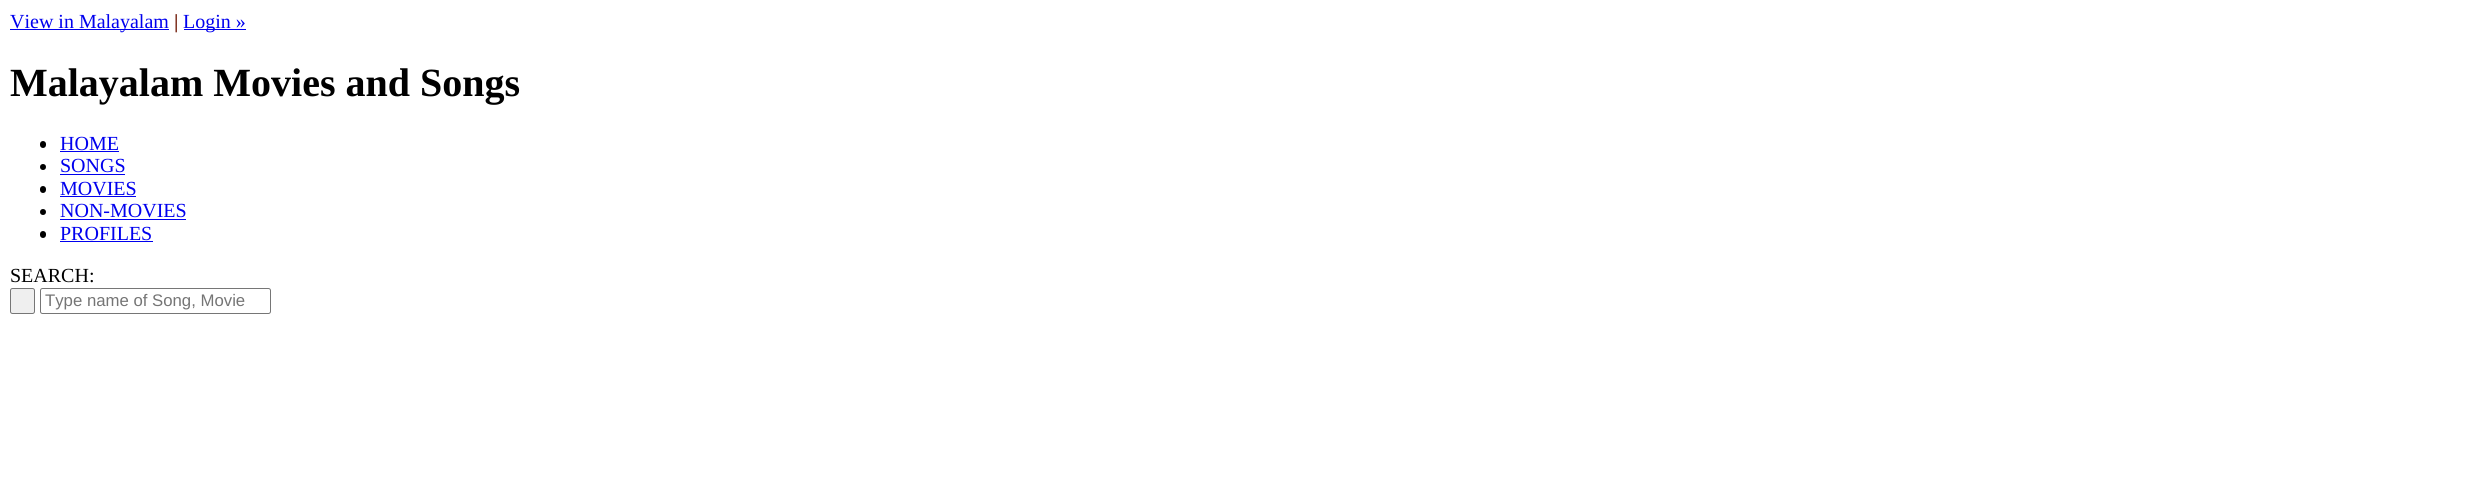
import math
import cairo

surface = cairo.ImageSurface(cairo.FORMAT_RGB24, 2489, 500)
ctx = cairo.Context(surface)
options = cairo.FontOptions()
options.set_hint_metrics(cairo.HINT_METRICS_OFF)
options.set_hint_style(cairo.HINT_STYLE_NONE)
ctx.set_font_options(options)
ctx.set_miter_limit(4)


def round_rect(x, y, w, h, r):
    ctx.new_sub_path()
    for i, (u, v) in enumerate([(x + w - r, y + h - r), (x + r, y + h - r), (x + r, y + r), (x + w - r, y + r)]):
        ctx.arc(u, v, r, i * math.pi / 2, (i + 1) * math.pi / 2)
    ctx.close_path()


ctx.set_source_rgb(1, 1, 1)
ctx.paint()
ctx.set_source_rgb(0, 0, 0.933)
ctx.rectangle(10, 29, 159, 1)
ctx.fill()
ctx.select_font_face("Liberation Serif")
ctx.set_font_size(20)
ctx.move_to(10, 28)
ctx.show_text("View in Malayalam")
ctx.select_font_face("Liberation Serif", cairo.FONT_SLANT_NORMAL, cairo.FONT_WEIGHT_BOLD)
ctx.set_source_rgb(0.463, 0.137, 0.067)
ctx.move_to(174, 28)
ctx.show_text("|")
ctx.set_source_rgb(0, 0, 0.933)
ctx.rectangle(184, 29, 62, 1)
ctx.fill()
ctx.select_font_face("Liberation Serif")
ctx.move_to(183, 28)
ctx.show_text("Login »")
ctx.select_font_face("Liberation Serif", cairo.FONT_SLANT_NORMAL, cairo.FONT_WEIGHT_BOLD)
ctx.set_font_size(40)
ctx.set_source_rgb(0, 0, 0)
ctx.move_to(10, 96)
ctx.show_text("Malayalam Movies and Songs")
round_rect(40, 141, 6, 7, 3)
ctx.fill()
ctx.select_font_face("Liberation Serif")
ctx.set_font_size(20)
ctx.set_source_rgb(0, 0, 0.933)
ctx.move_to(60, 150)
ctx.show_text("HOME")
ctx.rectangle(60, 151, 59, 1)
ctx.fill()
ctx.set_source_rgb(0, 0, 0)
ctx.arc(43, 167, 3, 0, 2 * math.pi)
ctx.fill()
ctx.set_source_rgb(0, 0, 0.933)
ctx.move_to(60, 172)
ctx.show_text("SONGS")
ctx.rectangle(60, 174, 65, 1)
ctx.fill()
ctx.set_source_rgb(0, 0, 0)
round_rect(40, 186, 6, 7, 3)
ctx.fill()
ctx.set_source_rgb(0, 0, 0.933)
ctx.move_to(60, 195)
ctx.show_text("MOVIES")
ctx.rectangle(60, 196, 76, 1)
ctx.fill()
ctx.set_source_rgb(0, 0, 0)
ctx.arc(43, 212, 3, 0, 2 * math.pi)
ctx.fill()
ctx.set_source_rgb(0, 0, 0.933)
ctx.move_to(60, 217)
ctx.show_text("NON-MOVIES")
ctx.rectangle(60, 219, 126, 1)
ctx.fill()
ctx.set_source_rgb(0, 0, 0)
round_rect(40, 231, 6, 7, 3)
ctx.fill()
ctx.set_source_rgb(0, 0, 0.933)
ctx.move_to(60, 240)
ctx.show_text("PROFILES")
ctx.rectangle(60, 241, 93, 1)
ctx.fill()
ctx.set_source_rgb(0, 0, 0)
ctx.move_to(10, 282)
ctx.show_text("SEARCH:")
ctx.set_source_rgb(0.937, 0.937, 0.937)
round_rect(10.5, 288.5, 24, 25, 2)
ctx.fill_preserve()
ctx.set_source_rgb(0.463, 0.463, 0.463)
ctx.set_line_width(1)
ctx.stroke()
round_rect(40.5, 288.5, 230, 25, 2)
ctx.stroke()
ctx.select_font_face("Liberation Sans")
ctx.set_font_size(16.75)
ctx.set_source_rgb(0.459, 0.459, 0.459)
ctx.move_to(45, 306)
ctx.show_text("Type name of Song, Movie")
surface.write_to_png("page.png")
